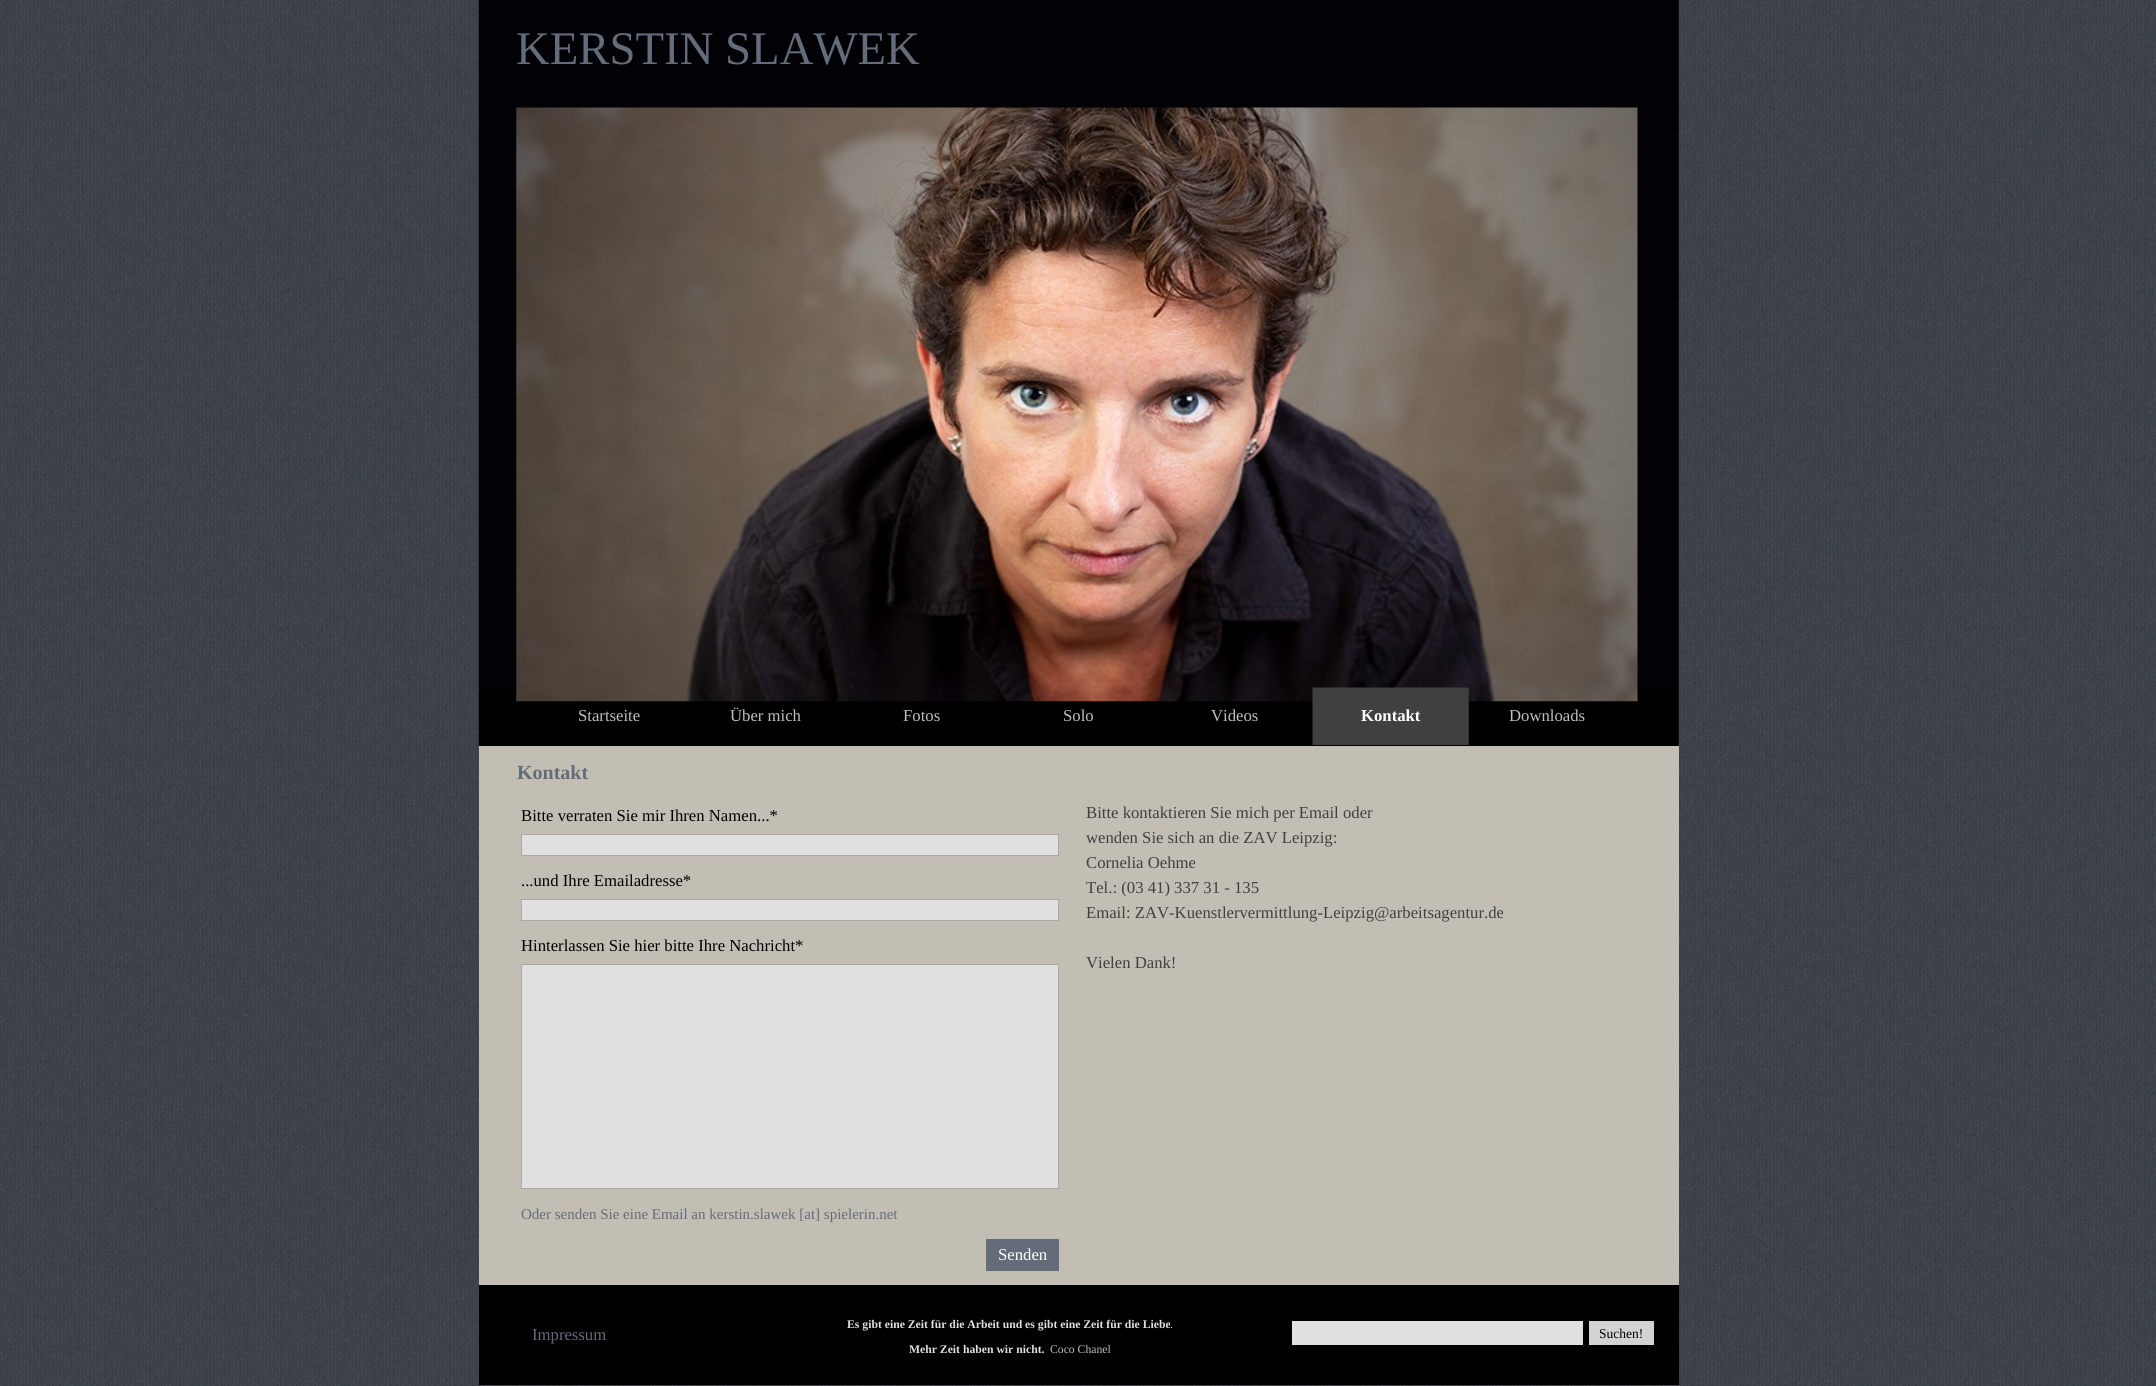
import math
import cairo

surface = cairo.ImageSurface(cairo.FORMAT_RGB24, 2156, 1386)
ctx = cairo.Context(surface)
options = cairo.FontOptions()
options.set_hint_metrics(cairo.HINT_METRICS_OFF)
options.set_hint_style(cairo.HINT_STYLE_NONE)
ctx.set_font_options(options)
ctx.set_miter_limit(4)


def picture(path, x, y, w, h):
    ctx.save()
    ctx.set_source_surface(cairo.ImageSurface.create_from_png(path), x, y)
    ctx.rectangle(x, y, w, h)
    ctx.fill()
    ctx.restore()


ctx.set_source_rgb(1, 1, 1)
ctx.paint()
picture("img1.png", 0, 0, 2156, 1386)
picture("img2.png", 478, 0, 1201, 747)
ctx.select_font_face("Liberation Serif")
ctx.set_font_size(46.75)
ctx.set_source_rgb(0.392, 0.424, 0.475)
ctx.move_to(516, 64)
ctx.show_text("KERSTIN SLAWEK")
picture("img3.png", 516, 107, 1122, 595)
ctx.set_font_size(16.7)
ctx.set_source_rgb(0.753, 0.753, 0.753)
ctx.move_to(578, 721)
ctx.show_text("Startseite")
ctx.move_to(730, 721)
ctx.show_text("Über mich")
ctx.move_to(903, 721)
ctx.show_text("Fotos")
ctx.move_to(1063, 721)
ctx.show_text("Solo")
ctx.move_to(1211, 721)
ctx.show_text("Videos")
picture("img4.png", 1312, 687, 157, 58)
ctx.select_font_face("Liberation Serif", cairo.FONT_SLANT_NORMAL, cairo.FONT_WEIGHT_BOLD)
ctx.set_source_rgb(1, 1, 1)
ctx.move_to(1361, 721)
ctx.show_text("Kontakt")
ctx.select_font_face("Liberation Serif")
ctx.set_source_rgb(0.753, 0.753, 0.753)
ctx.move_to(1509, 721)
ctx.show_text("Downloads")
ctx.set_source_rgb(0.761, 0.745, 0.702)
ctx.rectangle(479, 746, 1200, 539)
ctx.fill()
ctx.select_font_face("Liberation Serif", cairo.FONT_SLANT_NORMAL, cairo.FONT_WEIGHT_BOLD)
ctx.set_font_size(20)
ctx.set_source_rgb(0.392, 0.424, 0.475)
ctx.move_to(517, 779)
ctx.show_text("Kontakt")
ctx.select_font_face("Liberation Serif")
ctx.set_font_size(16.7)
ctx.set_source_rgb(0, 0, 0)
ctx.move_to(521, 821)
ctx.show_text("Bitte verraten Sie mir Ihren Namen...*")
ctx.set_source_rgb(0.878, 0.878, 0.878)
ctx.rectangle(521.5, 834.5, 537, 21)
ctx.fill_preserve()
ctx.set_source_rgb(0.663, 0.663, 0.663)
ctx.set_line_width(1)
ctx.stroke()
ctx.set_source_rgb(0, 0, 0)
ctx.move_to(521, 886)
ctx.show_text("...und Ihre Emailadresse*")
ctx.set_source_rgb(0.878, 0.878, 0.878)
ctx.rectangle(521.5, 899.5, 537, 21)
ctx.fill_preserve()
ctx.set_source_rgb(0.663, 0.663, 0.663)
ctx.stroke()
ctx.set_source_rgb(0, 0, 0)
ctx.move_to(521, 951)
ctx.show_text("Hinterlassen Sie hier bitte Ihre Nachricht*")
ctx.set_source_rgb(0.878, 0.878, 0.878)
ctx.rectangle(521.5, 964.5, 537, 224)
ctx.fill_preserve()
ctx.set_source_rgb(0.663, 0.663, 0.663)
ctx.stroke()
ctx.set_font_size(15)
ctx.set_source_rgb(0.392, 0.424, 0.475)
ctx.move_to(521, 1219)
ctx.show_text("Oder senden Sie eine Email an kerstin.slawek [at] spielerin.net")
ctx.rectangle(986, 1239, 73, 32)
ctx.fill()
ctx.set_font_size(16.7)
ctx.set_source_rgb(1, 1, 1)
ctx.move_to(998, 1260)
ctx.show_text("Senden")
ctx.set_source_rgb(0.251, 0.251, 0.251)
ctx.move_to(1086, 818)
ctx.show_text("Bitte kontaktieren Sie mich per Email oder")
ctx.move_to(1086, 843)
ctx.show_text("wenden Sie sich an die ZAV Leipzig:")
ctx.move_to(1086, 868)
ctx.show_text("Cornelia Oehme")
ctx.move_to(1086, 893)
ctx.show_text("Tel.: (03 41) 337 31 - 135")
ctx.move_to(1086, 918)
ctx.show_text("Email: ZAV-Kuenstlervermittlung-Leipzig@arbeitsagentur.de")
ctx.move_to(1086, 968)
ctx.show_text("Vielen Dank!")
ctx.set_source_rgb(0, 0, 0)
ctx.rectangle(479, 1285, 1200, 100)
ctx.fill()
ctx.set_source_rgb(0.392, 0.424, 0.475)
ctx.move_to(532, 1340)
ctx.show_text("Impressum")
ctx.select_font_face("Liberation Serif", cairo.FONT_SLANT_NORMAL, cairo.FONT_WEIGHT_BOLD)
ctx.set_font_size(11.7)
ctx.set_source_rgb(0.878, 0.878, 0.878)
ctx.move_to(847, 1328)
ctx.show_text("Es gibt eine Zeit für die Arbeit und es gibt eine Zeit für die Liebe")
ctx.select_font_face("Liberation Serif")
ctx.move_to(1170, 1328)
ctx.show_text(".")
ctx.select_font_face("Liberation Serif", cairo.FONT_SLANT_NORMAL, cairo.FONT_WEIGHT_BOLD)
ctx.move_to(909, 1353)
ctx.show_text("Mehr Zeit haben wir nicht.")
ctx.select_font_face("Liberation Serif")
ctx.set_source_rgb(0.753, 0.753, 0.753)
ctx.move_to(1050, 1353)
ctx.show_text("Coco Chanel")
ctx.set_source_rgb(0.878, 0.878, 0.878)
ctx.rectangle(1292, 1321, 291, 24)
ctx.fill()
ctx.set_source_rgb(0.827, 0.827, 0.827)
ctx.rectangle(1589, 1321, 65, 24)
ctx.fill()
ctx.set_font_size(13.5)
ctx.set_source_rgb(0, 0, 0)
ctx.move_to(1599, 1338)
ctx.show_text("Suchen!")
surface.write_to_png("page.png")
